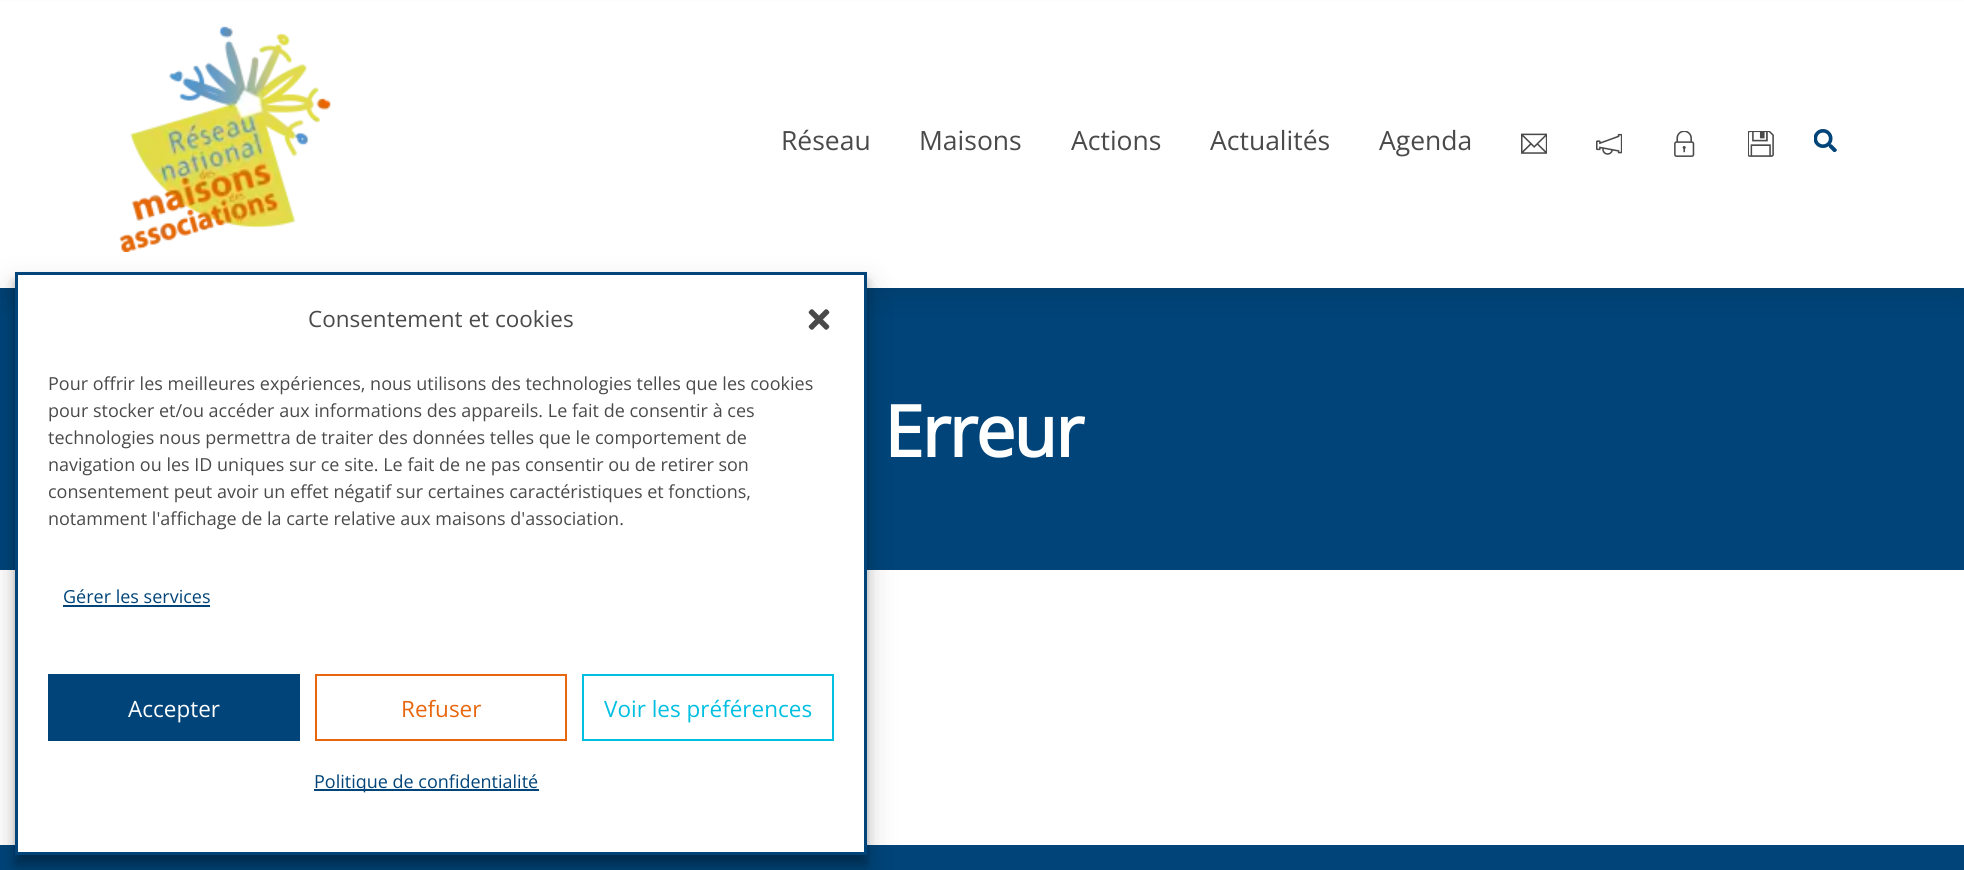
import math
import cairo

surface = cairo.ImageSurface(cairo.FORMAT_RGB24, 1964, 870)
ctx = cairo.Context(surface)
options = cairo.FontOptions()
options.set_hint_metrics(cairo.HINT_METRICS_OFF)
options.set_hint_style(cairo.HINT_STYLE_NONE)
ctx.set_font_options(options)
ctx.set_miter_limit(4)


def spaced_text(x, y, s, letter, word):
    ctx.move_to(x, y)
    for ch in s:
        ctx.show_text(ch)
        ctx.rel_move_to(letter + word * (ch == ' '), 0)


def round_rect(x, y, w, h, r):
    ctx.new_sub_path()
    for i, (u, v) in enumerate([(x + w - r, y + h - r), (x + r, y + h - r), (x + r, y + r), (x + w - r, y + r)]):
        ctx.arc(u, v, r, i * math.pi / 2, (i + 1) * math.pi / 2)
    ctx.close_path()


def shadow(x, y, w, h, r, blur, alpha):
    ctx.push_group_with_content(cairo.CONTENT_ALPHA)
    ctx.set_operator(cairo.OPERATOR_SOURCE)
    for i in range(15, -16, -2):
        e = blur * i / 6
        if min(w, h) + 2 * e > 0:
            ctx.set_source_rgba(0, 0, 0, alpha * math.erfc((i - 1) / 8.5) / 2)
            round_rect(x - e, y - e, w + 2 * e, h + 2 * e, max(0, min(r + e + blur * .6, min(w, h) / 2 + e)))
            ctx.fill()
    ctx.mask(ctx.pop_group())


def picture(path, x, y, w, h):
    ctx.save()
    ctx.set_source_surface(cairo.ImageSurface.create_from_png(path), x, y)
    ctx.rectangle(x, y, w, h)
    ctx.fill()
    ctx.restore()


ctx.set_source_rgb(1, 1, 1)
ctx.paint()
ctx.set_source_rgb(0, 0.267, 0.475)
ctx.rectangle(0, 288, 1964, 282)
ctx.fill()
ctx.set_source_rgb(0.039, 0.039, 0.039)
shadow(3, 17, 1959, 282, 0, 13, 0.1)
ctx.set_source_rgb(1, 1, 1)
ctx.rectangle(0, 1, 1964, 287)
ctx.fill()
ctx.set_source_rgb(0, 0.267, 0.475)
ctx.rectangle(0, 845, 1964, 25)
ctx.fill()
ctx.set_source_rgb(0, 0, 0)
shadow(15, 281, 852, 583, 0, 4.5, 0.23)
picture("img2.png", 119, 26, 212, 226)
shadow(15, 287, 852, 583, 0, 15, 0.19)
ctx.set_source_rgb(1, 1, 1)
ctx.rectangle(16.5, 273.5, 849, 580)
ctx.fill_preserve()
ctx.set_source_rgb(0, 0.267, 0.475)
ctx.set_line_width(3)
ctx.stroke()
ctx.select_font_face("Open Sans")
ctx.set_font_size(22.5)
ctx.set_source_rgb(0.29, 0.29, 0.29)
ctx.move_to(308, 327)
ctx.show_text("Consentement et cookies")
picture("img1.png", 808, 309, 22, 21)
ctx.set_font_size(18)
ctx.move_to(48, 390)
ctx.show_text("Pour offrir les meilleures expériences, nous utilisons des technologies telles que les cookies")
ctx.move_to(48, 417)
ctx.show_text("pour stocker et/ou accéder aux informations des appareils. Le fait de consentir à ces")
ctx.move_to(48, 444)
ctx.show_text("technologies nous permettra de traiter des données telles que le comportement de")
ctx.move_to(48, 471)
ctx.show_text("navigation ou les ID uniques sur ce site. Le fait de ne pas consentir ou de retirer son")
ctx.move_to(48, 498)
ctx.show_text("consentement peut avoir un effet négatif sur certaines caractéristiques et fonctions,")
ctx.move_to(48, 525)
ctx.show_text("notamment l'affichage de la carte relative aux maisons d'association.")
ctx.set_source_rgb(0, 0.267, 0.475)
ctx.move_to(63, 603)
ctx.show_text("Gérer les services")
ctx.rectangle(63, 605, 147, 2)
ctx.fill()
ctx.rectangle(48, 674, 252, 67)
ctx.fill()
ctx.set_font_size(22.5)
ctx.set_source_rgb(1, 1, 1)
ctx.move_to(128, 717)
ctx.show_text("Accepter")
ctx.rectangle(316, 675, 250, 65)
ctx.set_source_rgb(0.91, 0.4, 0.055)
ctx.set_line_width(2)
ctx.stroke()
ctx.move_to(401, 717)
ctx.show_text("Refuser")
ctx.rectangle(583, 675, 250, 65)
ctx.set_source_rgb(0, 0.749, 0.882)
ctx.stroke()
ctx.move_to(604, 717)
ctx.show_text("Voir les préférences")
ctx.set_source_rgb(0, 0.267, 0.475)
ctx.rectangle(314, 789, 225, 2)
ctx.fill()
ctx.set_font_size(18)
ctx.move_to(314, 788)
ctx.show_text("Politique de confidentialité")
ctx.set_font_size(26.5)
ctx.set_source_rgb(0.29, 0.29, 0.29)
ctx.move_to(781, 150)
ctx.show_text("Réseau")
ctx.move_to(919, 150)
ctx.show_text("Maisons")
ctx.move_to(1071, 150)
ctx.show_text("Actions")
ctx.move_to(1210, 150)
ctx.show_text("Actualités")
ctx.move_to(1379, 150)
ctx.show_text("Agenda")
picture("img3.png", 1521, 133, 26, 21)
picture("img4.png", 1596, 133, 26, 22)
picture("img5.png", 1674, 131, 21, 26)
picture("img6.png", 1748, 131, 26, 26)
picture("img7.png", 1814, 129, 23, 23)
ctx.select_font_face("Open Sans", cairo.FONT_SLANT_NORMAL, cairo.FONT_WEIGHT_BOLD)
ctx.set_font_size(71)
ctx.set_source_rgb(1, 1, 1)
spaced_text(884, 457, "Erreur", -2, 0)
surface.write_to_png("page.png")
